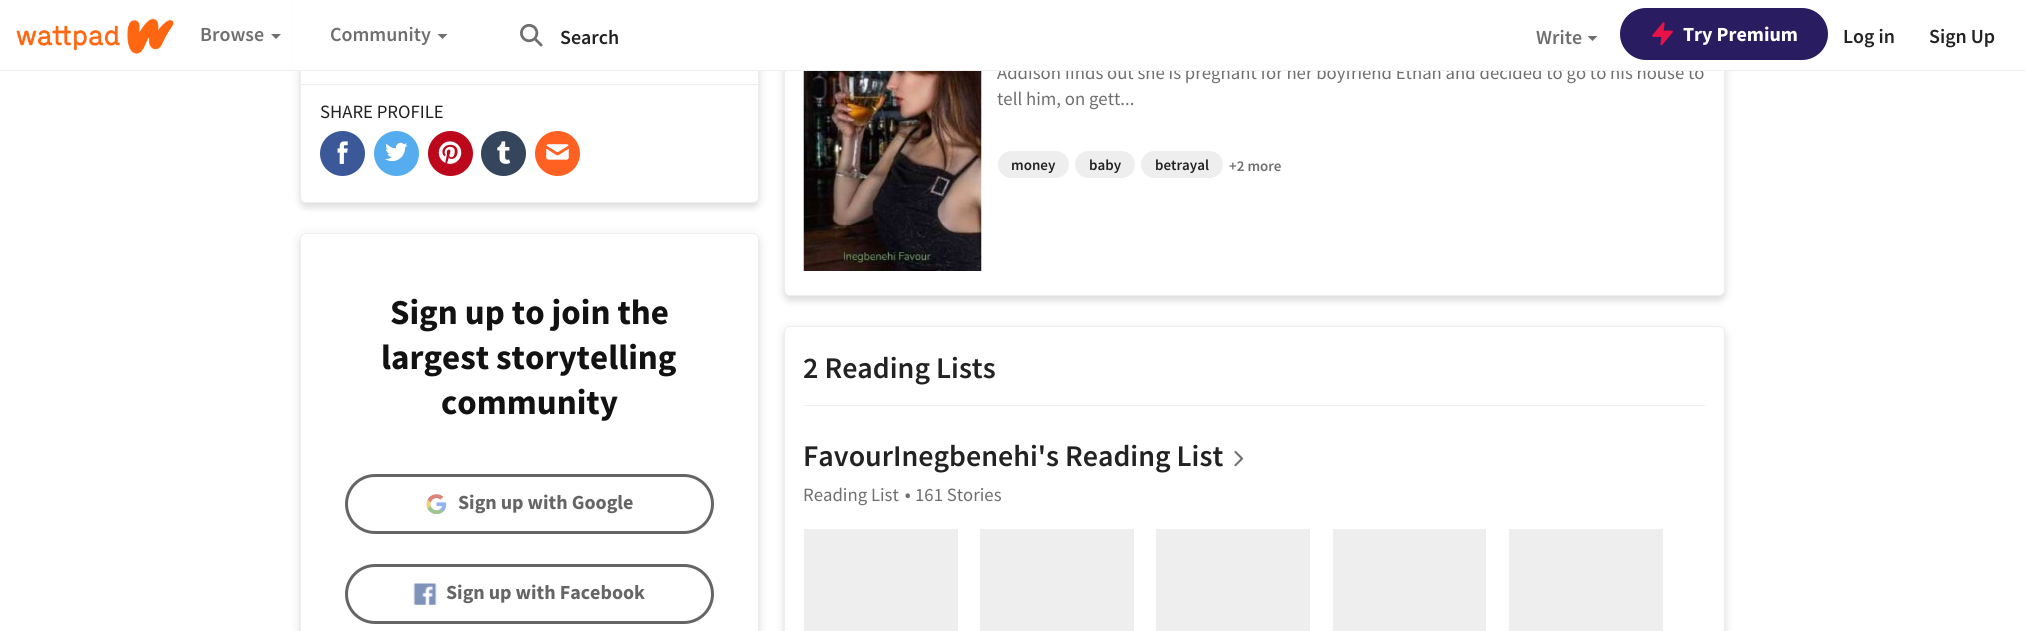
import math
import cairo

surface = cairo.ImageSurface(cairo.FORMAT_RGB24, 2025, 631)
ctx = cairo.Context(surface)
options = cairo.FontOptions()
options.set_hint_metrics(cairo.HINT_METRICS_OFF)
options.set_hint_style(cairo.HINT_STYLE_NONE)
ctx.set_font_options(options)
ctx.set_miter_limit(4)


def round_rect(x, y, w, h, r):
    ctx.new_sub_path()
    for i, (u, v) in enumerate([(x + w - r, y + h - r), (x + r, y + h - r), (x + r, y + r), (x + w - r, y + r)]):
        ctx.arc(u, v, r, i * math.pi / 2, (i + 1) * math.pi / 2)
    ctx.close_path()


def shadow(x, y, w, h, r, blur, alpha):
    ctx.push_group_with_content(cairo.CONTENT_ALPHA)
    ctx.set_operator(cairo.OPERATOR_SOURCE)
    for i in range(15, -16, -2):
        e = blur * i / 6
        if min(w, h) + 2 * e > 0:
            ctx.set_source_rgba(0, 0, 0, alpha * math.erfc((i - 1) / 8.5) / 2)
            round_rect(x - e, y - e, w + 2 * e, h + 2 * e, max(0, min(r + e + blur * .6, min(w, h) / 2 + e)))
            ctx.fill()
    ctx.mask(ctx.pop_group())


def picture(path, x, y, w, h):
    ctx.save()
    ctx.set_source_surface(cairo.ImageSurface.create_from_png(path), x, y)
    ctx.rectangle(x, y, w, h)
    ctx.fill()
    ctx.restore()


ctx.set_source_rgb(1, 1, 1)
ctx.paint()
ctx.set_source_rgb(0.133, 0.133, 0.133)
shadow(300, -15, 459, 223, 6, 3, 0.1)
shadow(300, -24, 459, 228, 6, 6, 0.08)
ctx.set_source_rgb(1, 1, 1)
round_rect(300.5, -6.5, 458, 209, 5.5)
ctx.fill_preserve()
ctx.set_source_rgb(0.933, 0.933, 0.933)
ctx.set_line_width(1)
ctx.stroke()
ctx.set_source_rgb(0.133, 0.133, 0.133)
shadow(784, -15, 941, 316, 6, 3, 0.1)
shadow(784, -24, 941, 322, 6, 6, 0.08)
ctx.set_source_rgb(1, 1, 1)
round_rect(784.5, -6.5, 940, 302, 5.5)
ctx.fill_preserve()
ctx.set_source_rgb(0.933, 0.933, 0.933)
ctx.stroke()
ctx.select_font_face("Source Sans Pro")
ctx.set_font_size(18.75)
ctx.set_source_rgb(0.435, 0.435, 0.435)
ctx.move_to(997, 79)
ctx.show_text("Addison finds out she is pregnant for her boyfriend Ethan and decided to go to his house to")
ctx.set_source_rgb(1, 1, 1)
ctx.rectangle(293, 0, 1439, 70)
ctx.fill()
ctx.set_source_rgb(0.933, 0.933, 0.933)
ctx.rectangle(0, 70, 2025, 1)
ctx.fill()
picture("img1.png", 16, 18, 158, 36)
ctx.select_font_face("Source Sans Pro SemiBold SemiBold")
ctx.set_font_size(20)
ctx.set_source_rgb(0.435, 0.435, 0.435)
ctx.move_to(200, 41)
ctx.show_text("Browse")
ctx.new_path()
ctx.move_to(271, 34)
ctx.line_to(281, 34)
ctx.line_to(276, 39)
ctx.close_path()
ctx.fill()
ctx.move_to(330, 41)
ctx.show_text("Community")
ctx.new_path()
ctx.move_to(437.5, 34)
ctx.line_to(447.5, 34)
ctx.line_to(442.5, 39)
ctx.close_path()
ctx.fill()
picture("img2.png", 520, 23, 23, 24)
ctx.set_source_rgb(0.133, 0.133, 0.133)
ctx.move_to(560, 44)
ctx.show_text("Search")
ctx.set_source_rgb(0.435, 0.435, 0.435)
ctx.move_to(1536, 44)
ctx.show_text("Write")
ctx.new_path()
ctx.move_to(1587.5, 36)
ctx.line_to(1597.5, 36)
ctx.line_to(1592.5, 41)
ctx.close_path()
ctx.fill()
ctx.set_source_rgb(0.165, 0.11, 0.376)
round_rect(1620, 8, 208, 52, 26)
ctx.fill()
picture("img3.png", 1652, 22, 21, 24)
ctx.select_font_face("Source Sans Pro", cairo.FONT_SLANT_NORMAL, cairo.FONT_WEIGHT_BOLD)
ctx.set_source_rgb(1, 1, 1)
ctx.move_to(1683, 41)
ctx.show_text("Try Premium")
ctx.select_font_face("Source Sans Pro SemiBold SemiBold")
ctx.set_source_rgb(0.133, 0.133, 0.133)
ctx.move_to(1843, 43)
ctx.show_text("Log in")
ctx.move_to(1929, 43)
ctx.show_text("Sign Up")
ctx.set_source_rgb(0.933, 0.933, 0.933)
ctx.rectangle(301, 84, 457, 1)
ctx.fill()
ctx.select_font_face("Source Sans Pro")
ctx.set_font_size(18.75)
ctx.set_source_rgb(0.133, 0.133, 0.133)
ctx.move_to(320, 118)
ctx.show_text("SHARE PROFILE")
ctx.set_source_rgb(0.231, 0.349, 0.596)
ctx.new_path()
ctx.arc(342.5, 153.5, 22.5, 0, 2 * math.pi)
ctx.fill()
picture("img4.png", 337, 141, 11, 23)
ctx.set_source_rgb(0.333, 0.675, 0.933)
ctx.arc(396.5, 153.5, 22.5, 0, 2 * math.pi)
ctx.fill()
picture("img5.png", 385, 142, 23, 20)
ctx.set_source_rgb(0.741, 0.031, 0.11)
ctx.arc(450.5, 153.5, 22.5, 0, 2 * math.pi)
ctx.fill()
picture("img6.png", 438, 141, 24, 23)
ctx.set_source_rgb(0.208, 0.275, 0.361)
ctx.arc(503.5, 153.5, 22.5, 0, 2 * math.pi)
ctx.fill()
picture("img7.png", 497, 141, 14, 23)
ctx.set_source_rgb(1, 0.38, 0.133)
ctx.arc(557.5, 153.5, 22.5, 0, 2 * math.pi)
ctx.fill()
picture("img8.png", 546, 144, 23, 16)
ctx.set_source_rgb(0.133, 0.133, 0.133)
shadow(300, 238, 459, 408, 6, 3, 0.1)
shadow(300, 234, 459, 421, 6, 6, 0.08)
ctx.set_source_rgb(1, 1, 1)
round_rect(300.5, 233.5, 458, 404, 5.5)
ctx.fill_preserve()
ctx.set_source_rgb(0.933, 0.933, 0.933)
ctx.stroke()
ctx.select_font_face("Source Sans Pro", cairo.FONT_SLANT_NORMAL, cairo.FONT_WEIGHT_BOLD)
ctx.set_font_size(35)
ctx.set_source_rgb(0.071, 0.071, 0.071)
ctx.move_to(390, 324)
ctx.show_text("Sign up to join the")
ctx.move_to(381, 369)
ctx.show_text("largest storytelling")
ctx.move_to(441, 414)
ctx.show_text("community")
round_rect(346.5, 475.5, 366, 57, 28.5)
ctx.set_source_rgb(0.396, 0.396, 0.396)
ctx.set_line_width(3)
ctx.stroke()
picture("img9.png", 426, 494, 21, 20)
ctx.set_font_size(20)
ctx.move_to(458, 509)
ctx.show_text("Sign up with Google")
round_rect(346.5, 565.5, 366, 57, 28.5)
ctx.stroke()
picture("img10.png", 413, 583, 24, 22)
ctx.move_to(446, 599)
ctx.show_text("Sign up with Facebook")
picture("img11.png", 803, 71, 179, 200)
ctx.select_font_face("Source Sans Pro")
ctx.set_font_size(18.75)
ctx.set_source_rgb(0.435, 0.435, 0.435)
ctx.move_to(997, 105)
ctx.show_text("tell him, on gett...")
ctx.set_source_rgb(0.933, 0.933, 0.933)
round_rect(998.5, 151.5, 70, 26, 13)
ctx.fill_preserve()
ctx.set_line_width(1)
ctx.stroke()
ctx.select_font_face("Source Sans Pro SemiBold SemiBold")
ctx.set_font_size(15)
ctx.set_source_rgb(0.133, 0.133, 0.133)
ctx.move_to(1011, 170)
ctx.show_text("money")
ctx.set_source_rgb(0.933, 0.933, 0.933)
round_rect(1075.5, 151.5, 59, 26, 13)
ctx.fill_preserve()
ctx.stroke()
ctx.set_source_rgb(0.133, 0.133, 0.133)
ctx.move_to(1089, 170)
ctx.show_text("baby")
ctx.set_source_rgb(0.933, 0.933, 0.933)
round_rect(1141.5, 151.5, 81, 26, 13)
ctx.fill_preserve()
ctx.stroke()
ctx.set_source_rgb(0.133, 0.133, 0.133)
ctx.move_to(1155, 170)
ctx.show_text("betrayal")
ctx.set_source_rgb(0.435, 0.435, 0.435)
ctx.move_to(1229, 171)
ctx.show_text("+2 more")
ctx.set_source_rgb(0.133, 0.133, 0.133)
shadow(784, 331, 941, 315, 6, 3, 0.1)
shadow(784, 328, 941, 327, 6, 6, 0.08)
ctx.set_source_rgb(1, 1, 1)
round_rect(784.5, 326.5, 940, 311, 5.5)
ctx.fill_preserve()
ctx.set_source_rgb(0.933, 0.933, 0.933)
ctx.stroke()
ctx.set_font_size(30)
ctx.set_source_rgb(0.133, 0.133, 0.133)
ctx.move_to(803, 378)
ctx.show_text("2 Reading Lists")
ctx.set_source_rgb(0.933, 0.933, 0.933)
ctx.rectangle(804, 405, 901, 1)
ctx.fill()
ctx.set_source_rgb(0.133, 0.133, 0.133)
ctx.move_to(803, 466)
ctx.show_text("FavourInegbenehi's Reading List")
picture("img12.png", 1234, 451, 10, 16)
ctx.select_font_face("Source Sans Pro")
ctx.set_font_size(18.75)
ctx.set_source_rgb(0.435, 0.435, 0.435)
ctx.move_to(803, 501)
ctx.show_text("Reading List")
ctx.set_font_size(38)
ctx.move_to(903, 508)
ctx.show_text("·")
ctx.set_font_size(18.75)
ctx.move_to(915, 501)
ctx.show_text("161 Stories")
ctx.set_source_rgb(0.933, 0.933, 0.933)
ctx.rectangle(804, 529, 154, 102)
ctx.fill()
ctx.rectangle(980, 529, 154, 102)
ctx.fill()
ctx.rectangle(1156, 529, 154, 102)
ctx.fill()
ctx.rectangle(1333, 529, 153, 102)
ctx.fill()
ctx.rectangle(1509, 529, 154, 102)
ctx.fill()
surface.write_to_png("page.png")
